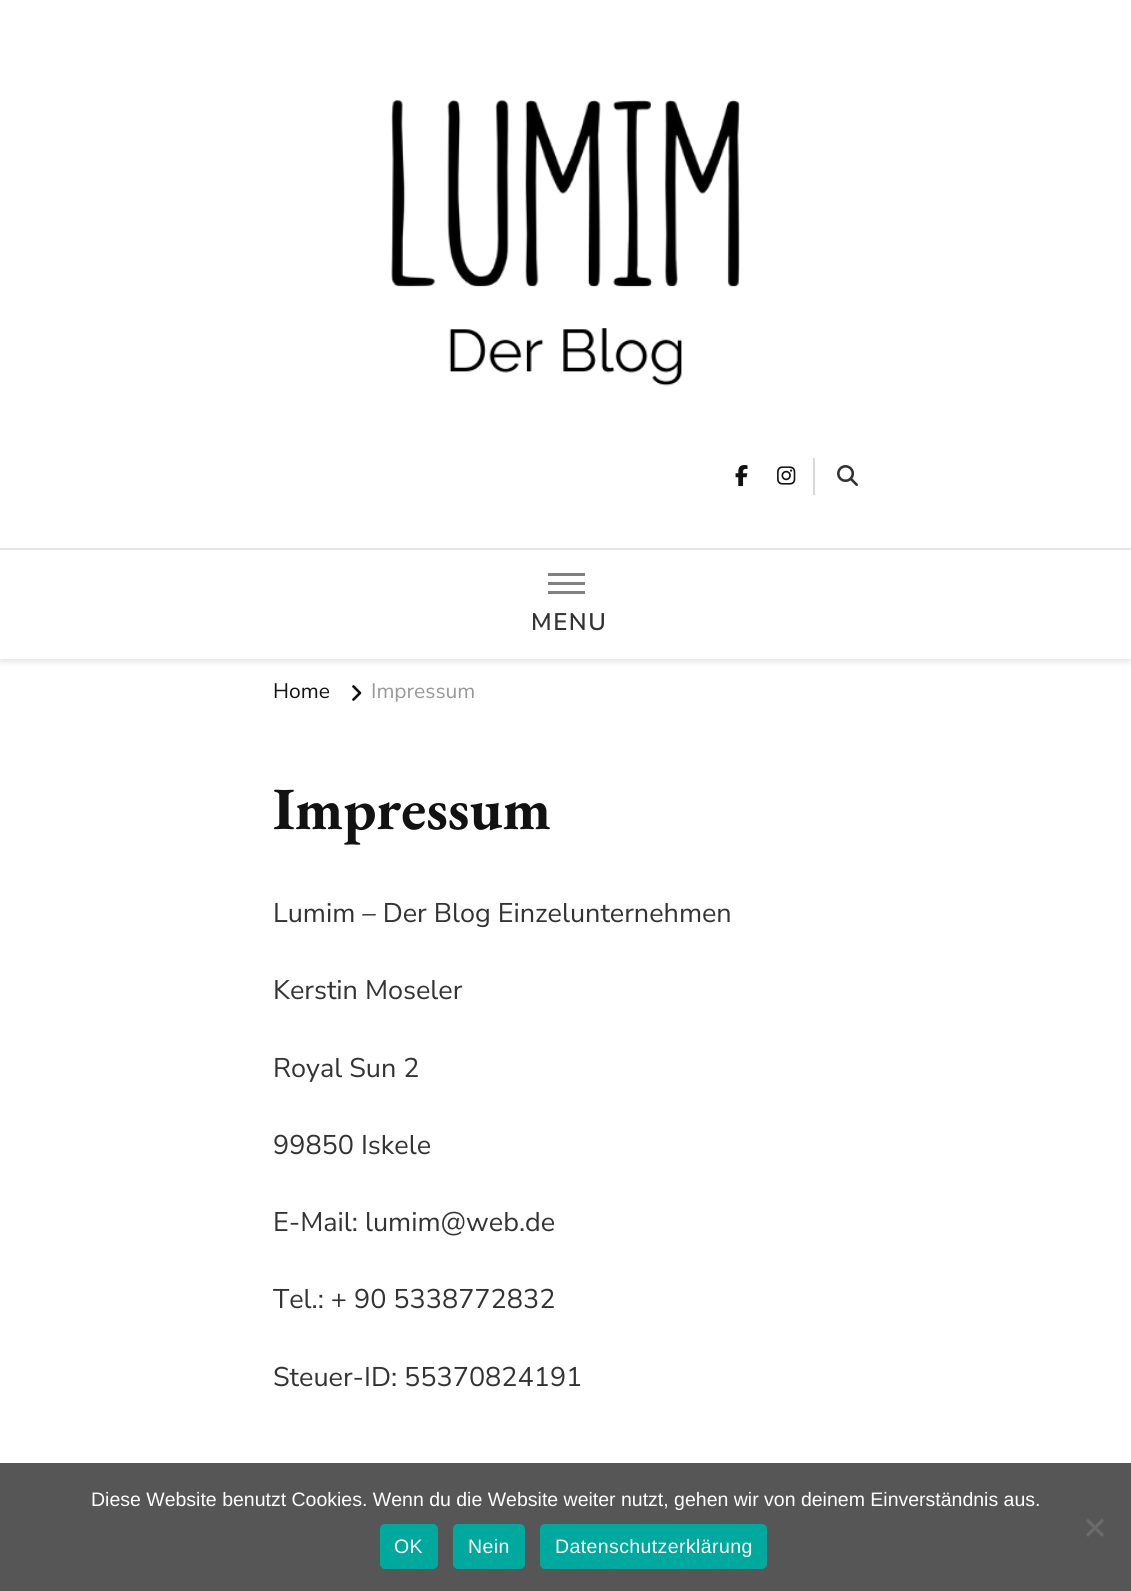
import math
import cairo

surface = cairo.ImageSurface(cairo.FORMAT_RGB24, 1131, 1591)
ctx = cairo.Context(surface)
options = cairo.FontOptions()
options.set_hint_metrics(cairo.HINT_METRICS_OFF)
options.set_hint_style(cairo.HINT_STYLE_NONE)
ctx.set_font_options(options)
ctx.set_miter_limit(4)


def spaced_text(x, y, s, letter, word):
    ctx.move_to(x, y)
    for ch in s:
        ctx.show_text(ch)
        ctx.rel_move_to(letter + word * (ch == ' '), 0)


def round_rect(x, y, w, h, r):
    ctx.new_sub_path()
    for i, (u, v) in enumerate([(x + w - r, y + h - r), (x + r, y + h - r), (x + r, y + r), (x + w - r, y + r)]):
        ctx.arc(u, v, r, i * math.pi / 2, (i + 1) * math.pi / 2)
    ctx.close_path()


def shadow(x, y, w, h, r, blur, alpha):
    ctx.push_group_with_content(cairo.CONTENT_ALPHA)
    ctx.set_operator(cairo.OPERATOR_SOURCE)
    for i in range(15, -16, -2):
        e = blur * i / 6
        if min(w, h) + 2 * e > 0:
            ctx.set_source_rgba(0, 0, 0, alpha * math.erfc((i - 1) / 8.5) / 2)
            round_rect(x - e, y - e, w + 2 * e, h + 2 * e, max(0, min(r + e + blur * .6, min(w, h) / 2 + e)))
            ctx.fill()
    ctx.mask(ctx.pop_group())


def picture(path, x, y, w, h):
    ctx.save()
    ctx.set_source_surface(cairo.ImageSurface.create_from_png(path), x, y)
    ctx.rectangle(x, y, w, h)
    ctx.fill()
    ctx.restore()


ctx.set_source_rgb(1, 1, 1)
ctx.paint()
picture("img1.png", 391, 99, 349, 287)
picture("img2.png", 735, 465, 13, 21)
picture("img3.png", 777, 466, 19, 19)
ctx.set_source_rgb(0.851, 0.851, 0.851)
ctx.rectangle(813, 458, 2, 37)
ctx.fill()
picture("img4.png", 837, 465, 21, 21)
ctx.save()
ctx.set_fill_rule(cairo.FILL_RULE_EVEN_ODD)
ctx.new_path()
ctx.move_to(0, 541)
ctx.line_to(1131, 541)
ctx.line_to(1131, 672)
ctx.line_to(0, 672)
ctx.close_path()
ctx.move_to(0, 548)
ctx.line_to(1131, 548)
ctx.line_to(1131, 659)
ctx.line_to(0, 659)
ctx.close_path()
ctx.clip()
ctx.set_source_rgb(0, 0, 0)
shadow(0, 551, 1131, 111, 0, 3, 0.1)
ctx.restore()
ctx.set_source_rgb(0.902, 0.902, 0.902)
ctx.rectangle(0, 548, 1131, 2)
ctx.fill()
ctx.set_source_rgb(0.502, 0.502, 0.502)
ctx.rectangle(548, 573, 37, 3)
ctx.fill()
ctx.rectangle(548, 582, 37, 3)
ctx.fill()
ctx.rectangle(548, 591, 37, 3)
ctx.fill()
ctx.select_font_face("Nunito Sans SemiBold")
ctx.set_font_size(24)
ctx.set_source_rgb(0.2, 0.2, 0.2)
spaced_text(531, 630, "MENU", 1.5, 0)
ctx.select_font_face("Nunito Sans")
ctx.set_font_size(21)
ctx.set_source_rgb(0.071, 0.071, 0.071)
ctx.move_to(273, 698)
ctx.show_text("Home")
picture("img5.png", 352, 685, 10, 16)
ctx.set_source_rgb(0.6, 0.6, 0.6)
ctx.move_to(371, 698)
ctx.show_text("Impressum")
ctx.select_font_face("EB Garamond", cairo.FONT_SLANT_NORMAL, cairo.FONT_WEIGHT_BOLD)
ctx.set_font_size(60)
ctx.set_source_rgb(0.071, 0.071, 0.071)
ctx.move_to(273, 829)
ctx.show_text("Impressum")
ctx.select_font_face("Nunito Sans")
ctx.set_font_size(27)
ctx.set_source_rgb(0.2, 0.2, 0.2)
ctx.move_to(273, 922)
ctx.show_text("Lumim – Der Blog Einzelunternehmen")
ctx.move_to(273, 999)
ctx.show_text("Kerstin Moseler")
ctx.move_to(273, 1077)
ctx.show_text("Royal Sun 2")
ctx.move_to(273, 1154)
ctx.show_text("99850 Iskele")
ctx.move_to(273, 1231)
ctx.show_text("E-Mail: lumim@web.de")
ctx.move_to(273, 1308)
ctx.show_text("Tel.: + 90 5338772832")
ctx.move_to(273, 1386)
ctx.show_text("Steuer-ID: 55370824191")
ctx.set_source_rgb(0.337, 0.337, 0.337)
ctx.rectangle(0, 1463, 1131, 128)
ctx.fill()
ctx.select_font_face("Liberation Sans")
ctx.set_font_size(19.5)
ctx.set_source_rgb(1, 1, 1)
ctx.move_to(91, 1506)
ctx.show_text("Diese Website benutzt Cookies. Wenn du die Website weiter nutzt, gehen wir von deinem Einverständnis aus.")
ctx.set_source_rgb(0.42, 0.42, 0.42)
ctx.new_path()
ctx.move_to(1102, 1518.5)
ctx.line_to(1104, 1521)
ctx.line_to(1088, 1537)
ctx.line_to(1086, 1534.5)
ctx.close_path()
ctx.fill()
ctx.new_path()
ctx.move_to(1086, 1521)
ctx.line_to(1088, 1518.5)
ctx.line_to(1104, 1534.5)
ctx.line_to(1102, 1537)
ctx.close_path()
ctx.fill()
ctx.set_source_rgb(0, 0.663, 0.616)
round_rect(380, 1524, 58, 45, 5)
ctx.fill()
ctx.set_source_rgb(1, 1, 1)
spaced_text(394, 1553, "OK", 0.4, 0)
ctx.set_source_rgb(0, 0.663, 0.616)
round_rect(453, 1524, 72, 45, 5)
ctx.fill()
ctx.set_source_rgb(1, 1, 1)
spaced_text(468, 1553, "Nein", 0.4, 0)
ctx.set_source_rgb(0, 0.663, 0.616)
round_rect(540, 1524, 227, 45, 5)
ctx.fill()
ctx.set_source_rgb(1, 1, 1)
spaced_text(555, 1553, "Datenschutzerklärung", 0.4, 0)
surface.write_to_png("page.png")
